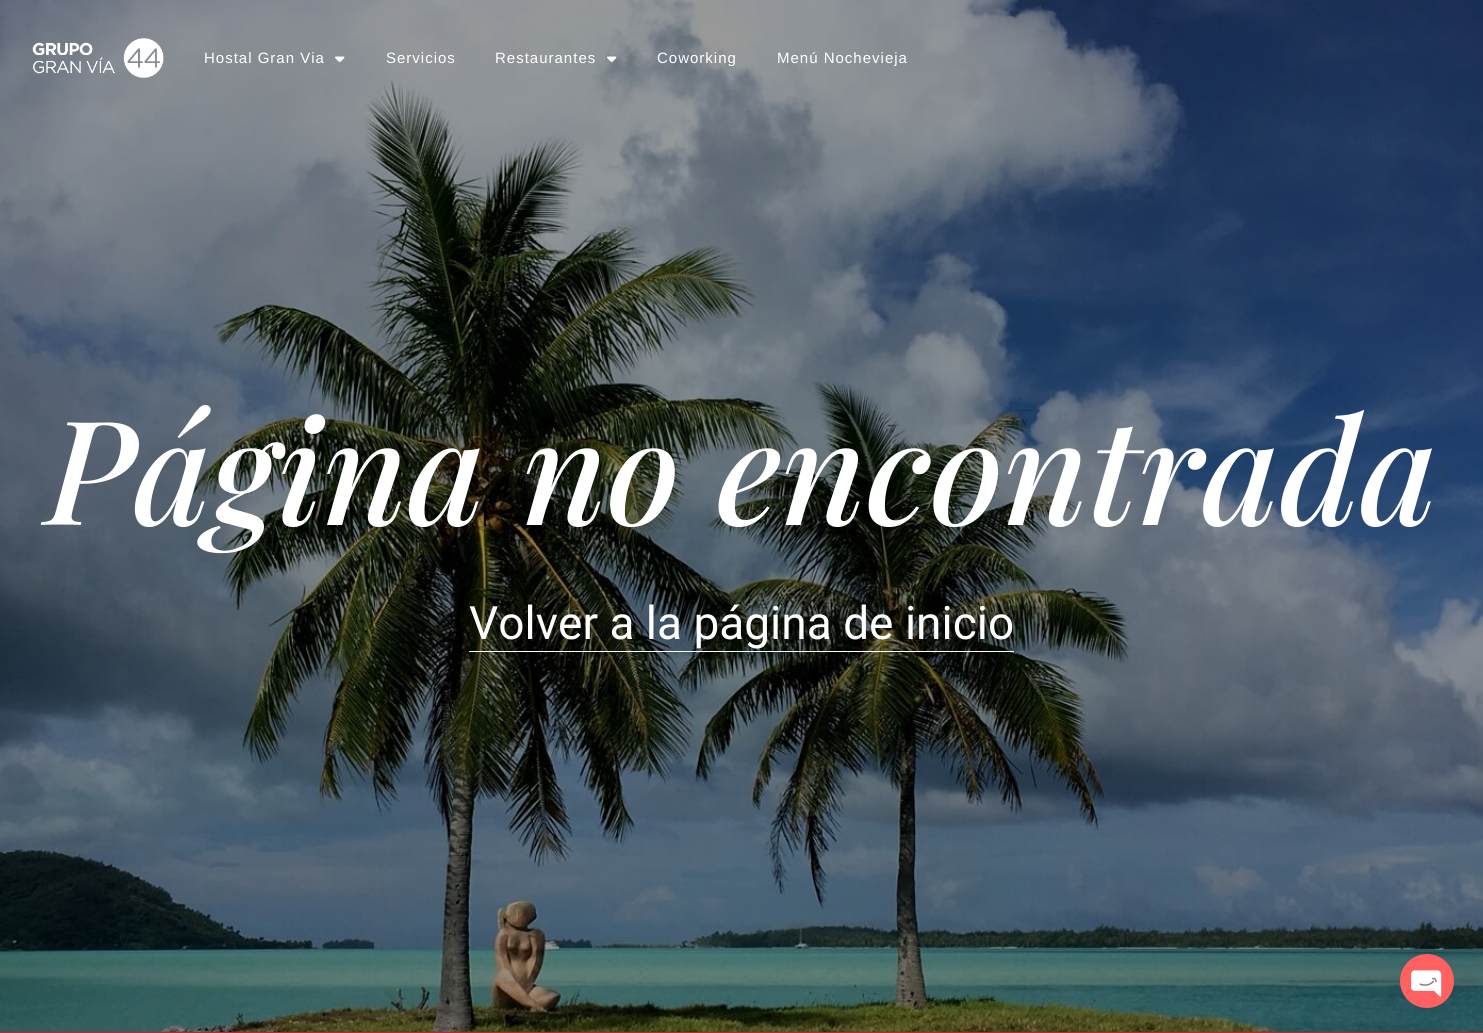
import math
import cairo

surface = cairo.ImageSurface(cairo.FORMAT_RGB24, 1483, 1033)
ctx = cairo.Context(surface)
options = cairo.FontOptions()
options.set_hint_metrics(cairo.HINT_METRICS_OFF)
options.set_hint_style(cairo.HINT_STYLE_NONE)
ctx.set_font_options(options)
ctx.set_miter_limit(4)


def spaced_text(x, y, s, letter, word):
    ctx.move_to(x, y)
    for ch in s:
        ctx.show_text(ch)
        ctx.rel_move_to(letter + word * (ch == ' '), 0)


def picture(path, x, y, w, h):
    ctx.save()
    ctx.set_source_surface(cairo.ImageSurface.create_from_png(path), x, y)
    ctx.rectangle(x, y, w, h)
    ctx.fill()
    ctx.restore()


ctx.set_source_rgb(1, 1, 1)
ctx.paint()
picture("img4.png", 0, 0, 1483, 1032)
picture("img1.png", 32, 38, 132, 40)
ctx.select_font_face("Liberation Sans")
ctx.set_font_size(15)
ctx.set_source_rgb(1, 1, 1)
spaced_text(204, 63, "Hostal Gran Via", 1, 0)
picture("img2.png", 335, 56, 10, 7)
spaced_text(386, 63, "Servicios", 1, 0)
spaced_text(495, 63, "Restaurantes", 1, 0)
picture("img3.png", 607, 56, 10, 7)
spaced_text(657, 63, "Coworking", 1, 0)
spaced_text(777, 63, "Menú Nochevieja", 1, 0)
ctx.select_font_face("Playfair Display Medium", cairo.FONT_SLANT_ITALIC)
ctx.set_font_size(145)
ctx.move_to(46, 525)
ctx.show_text("Página no encontrada")
ctx.rectangle(469, 651, 545, 1)
ctx.fill()
ctx.select_font_face("Roboto")
ctx.set_font_size(46)
ctx.move_to(469, 639)
ctx.show_text("Volver a la página de inicio")
picture("img5.png", 1400, 954, 54, 54)
ctx.set_source_rgb(0.722, 0.145, 0.169)
ctx.rectangle(0, 1032, 1483, 1)
ctx.fill()
surface.write_to_png("page.png")
